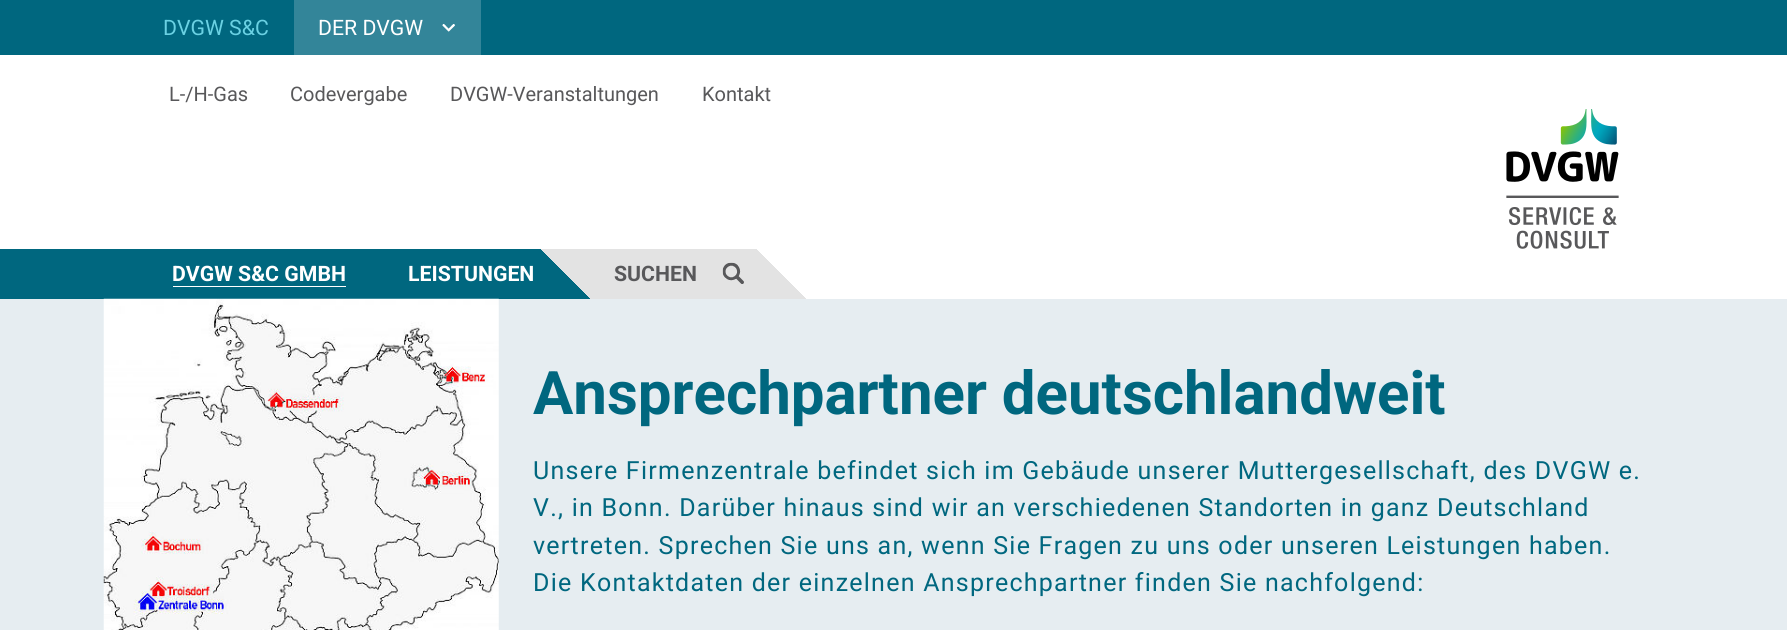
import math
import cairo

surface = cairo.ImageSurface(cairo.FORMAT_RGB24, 1787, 630)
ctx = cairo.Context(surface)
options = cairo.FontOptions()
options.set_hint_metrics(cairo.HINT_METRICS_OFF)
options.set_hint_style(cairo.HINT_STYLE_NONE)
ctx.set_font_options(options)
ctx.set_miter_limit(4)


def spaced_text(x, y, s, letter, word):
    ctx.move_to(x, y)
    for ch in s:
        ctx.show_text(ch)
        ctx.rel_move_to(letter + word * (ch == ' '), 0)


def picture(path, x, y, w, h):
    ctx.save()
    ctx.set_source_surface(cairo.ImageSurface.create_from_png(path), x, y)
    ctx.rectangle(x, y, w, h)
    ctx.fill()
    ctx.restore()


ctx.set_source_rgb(1, 1, 1)
ctx.paint()
ctx.set_source_rgb(0, 0.404, 0.498)
ctx.rectangle(0, 0, 1787, 55)
ctx.fill()
ctx.select_font_face("Roboto")
ctx.set_font_size(21.25)
ctx.set_source_rgb(0.416, 0.82, 0.89)
ctx.move_to(163, 35)
ctx.show_text("DVGW S&C")
ctx.set_source_rgb(0.2, 0.522, 0.6)
ctx.rectangle(294, 0, 187, 55)
ctx.fill()
ctx.set_source_rgb(1, 1, 1)
ctx.move_to(318, 35)
ctx.show_text("DER DVGW")
picture("img1.png", 442, 24, 13, 8)
ctx.set_font_size(20)
ctx.set_source_rgb(0.345, 0.345, 0.353)
ctx.move_to(169, 101)
ctx.show_text("L-/H-Gas")
ctx.move_to(290, 101)
ctx.show_text("Codevergabe")
ctx.move_to(450, 101)
ctx.show_text("DVGW-Veranstaltungen")
ctx.move_to(702, 101)
ctx.show_text("Kontakt")
picture("img2.png", 1506, 109, 113, 140)
gradient = cairo.LinearGradient(0, 274, 808, 274)
gradient.add_color_stop_rgba(0, 0, 0.404, 0.498, 1)
gradient.add_color_stop_rgba(0.8, 0, 0.404, 0.498, 1)
gradient.add_color_stop_rgba(0.8, 1, 1, 1, 1)
gradient.add_color_stop_rgba(1, 1, 1, 1, 1)
ctx.set_source(gradient)
ctx.rectangle(0, 249, 646, 50)
ctx.fill()
ctx.select_font_face("Roboto", cairo.FONT_SLANT_NORMAL, cairo.FONT_WEIGHT_BOLD)
ctx.set_font_size(21.25)
ctx.set_source_rgb(1, 1, 1)
ctx.move_to(172, 281)
ctx.show_text("DVGW S&C GMBH")
ctx.rectangle(173, 286, 173, 1)
ctx.fill()
ctx.move_to(408, 281)
ctx.show_text("LEISTUNGEN")
gradient = cairo.LinearGradient(593, 353, 753, 194)
gradient.add_color_stop_rgba(0, 0, 0, 0, 0)
gradient.add_color_stop_rgba(0.16, 0.89, 0.89, 0.89, 0)
gradient.add_color_stop_rgba(0.16, 0.89, 0.89, 0.89, 1)
gradient.add_color_stop_rgba(0.84, 0.89, 0.89, 0.89, 1)
gradient.add_color_stop_rgba(0.84, 0.89, 0.89, 0.89, 0)
gradient.add_color_stop_rgba(1, 0, 0, 0, 0)
ctx.set_source(gradient)
ctx.rectangle(541, 249, 265, 50)
ctx.fill()
ctx.set_source_rgb(0.345, 0.345, 0.353)
ctx.move_to(614, 281)
ctx.show_text("SUCHEN")
picture("img3.png", 722, 262, 22, 22)
ctx.set_source_rgb(0.902, 0.929, 0.945)
ctx.rectangle(0, 299, 1787, 331)
ctx.fill()
picture("img4.png", 103, 298, 396, 332)
ctx.set_font_size(60)
ctx.set_source_rgb(0, 0.404, 0.498)
ctx.move_to(533, 414)
ctx.show_text("Ansprechpartner deutschlandweit")
ctx.select_font_face("Roboto")
ctx.set_font_size(25)
spaced_text(533, 479, "Unsere Firmenzentrale befindet sich im Gebäude unserer Muttergesellschaft, des DVGW e.", 1.25, 0)
spaced_text(533, 516, "V., in Bonn. Darüber hinaus sind wir an verschiedenen Standorten in ganz Deutschland", 1.25, 0)
spaced_text(533, 554, "vertreten. Sprechen Sie uns an, wenn Sie Fragen zu uns oder unseren Leistungen haben.", 1.25, 0)
spaced_text(533, 591, "Die Kontaktdaten der einzelnen Ansprechpartner finden Sie nachfolgend:", 1.25, 0)
surface.write_to_png("page.png")
